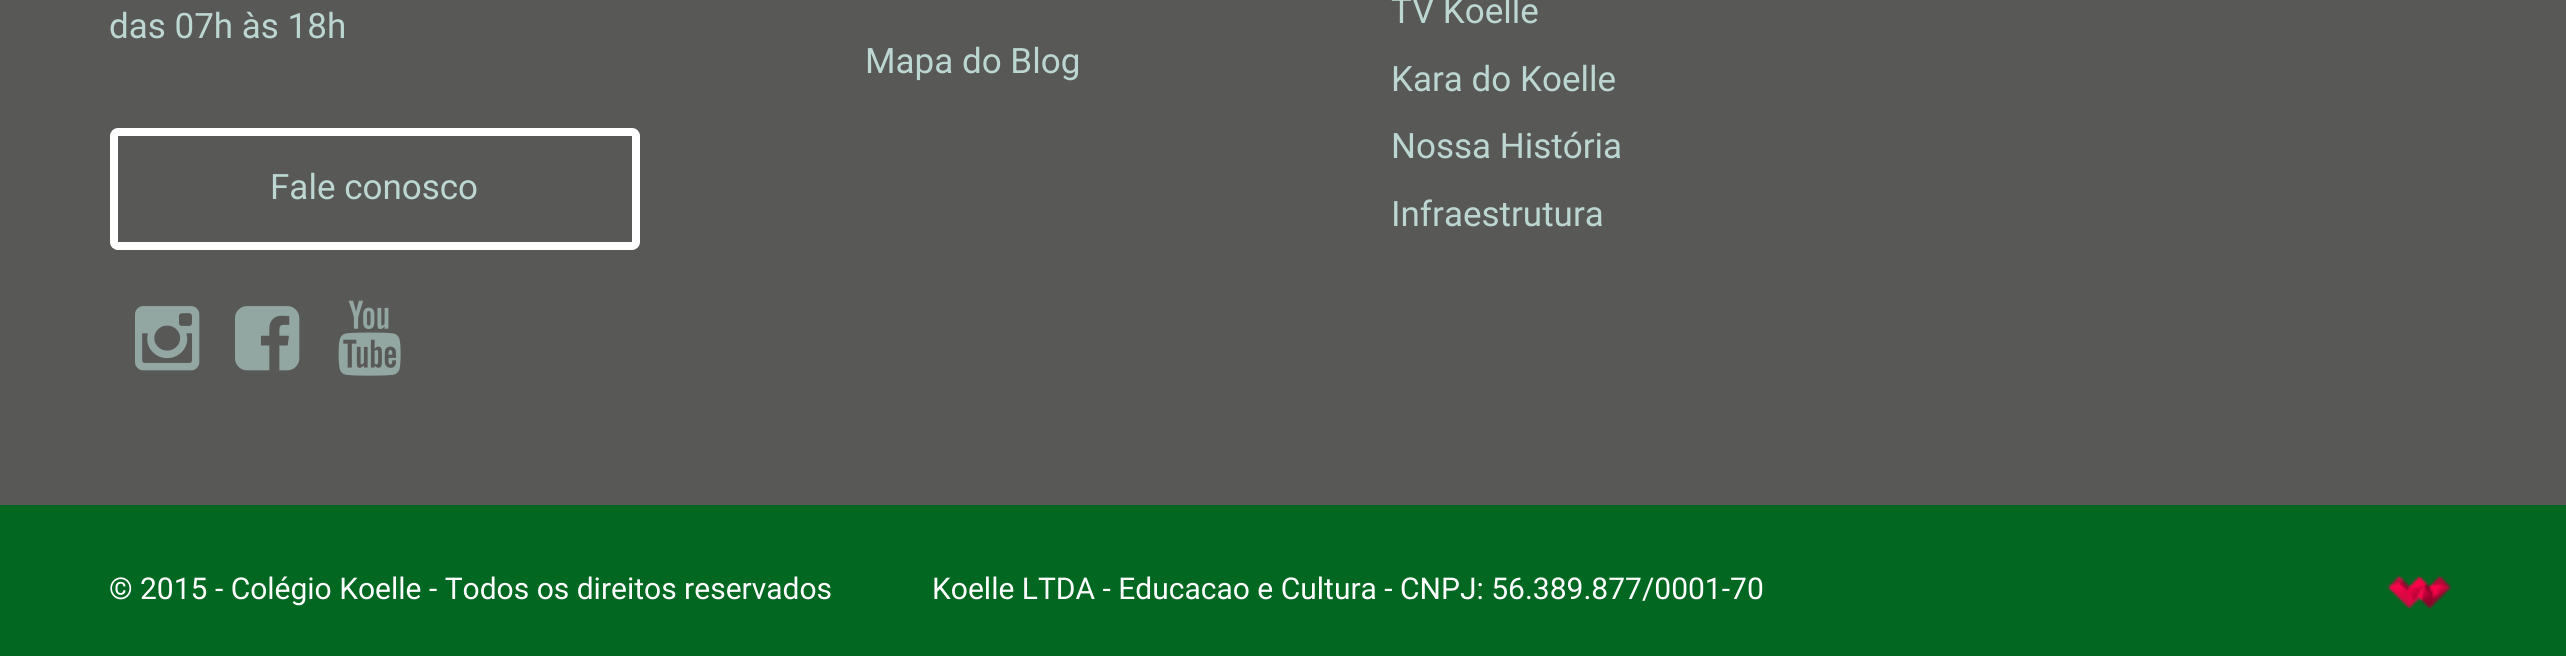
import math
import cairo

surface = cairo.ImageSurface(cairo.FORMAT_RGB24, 2566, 656)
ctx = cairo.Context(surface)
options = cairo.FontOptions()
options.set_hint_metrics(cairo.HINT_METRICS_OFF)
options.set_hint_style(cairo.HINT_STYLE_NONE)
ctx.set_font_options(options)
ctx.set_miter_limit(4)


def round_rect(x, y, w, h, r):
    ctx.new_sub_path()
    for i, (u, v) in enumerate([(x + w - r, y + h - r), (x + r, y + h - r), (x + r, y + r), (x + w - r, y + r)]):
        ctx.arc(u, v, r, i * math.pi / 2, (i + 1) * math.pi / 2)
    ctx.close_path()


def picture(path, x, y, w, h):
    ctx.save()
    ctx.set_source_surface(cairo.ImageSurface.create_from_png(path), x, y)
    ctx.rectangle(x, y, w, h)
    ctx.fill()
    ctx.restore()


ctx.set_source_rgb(0.345, 0.345, 0.341)
ctx.paint()
ctx.select_font_face("Roboto")
ctx.set_font_size(35)
ctx.set_source_rgb(0.737, 0.843, 0.824)
ctx.move_to(109, 38)
ctx.show_text("das 07h às 18h")
round_rect(114, 132, 522, 114, 4)
ctx.set_source_rgb(1, 1, 1)
ctx.set_line_width(8)
ctx.stroke()
ctx.set_source_rgb(0.737, 0.843, 0.824)
ctx.move_to(270, 199)
ctx.show_text("Fale conosco")
picture("img1.png", 135, 306, 65, 65)
picture("img2.png", 235, 306, 65, 65)
picture("img3.png", 338, 300, 63, 76)
ctx.move_to(865, 73)
ctx.show_text("Mapa do Blog")
ctx.move_to(1391, 23)
ctx.show_text("TV Koelle")
ctx.move_to(1391, 91)
ctx.show_text("Kara do Koelle")
ctx.move_to(1391, 158)
ctx.show_text("Nossa História")
ctx.move_to(1391, 226)
ctx.show_text("Infraestrutura")
ctx.set_source_rgb(0.008, 0.404, 0.129)
ctx.rectangle(0, 505, 2566, 151)
ctx.fill()
ctx.set_font_size(30)
ctx.set_source_rgb(1, 1, 1)
ctx.move_to(109, 599)
ctx.show_text("© 2015 - Colégio Koelle - Todos os direitos reservados")
ctx.move_to(932, 599)
ctx.show_text("Koelle LTDA - Educacao e Cultura - CNPJ: 56.389.877/0001-70")
picture("img4.png", 2387, 574, 65, 36)
surface.write_to_png("page.png")
